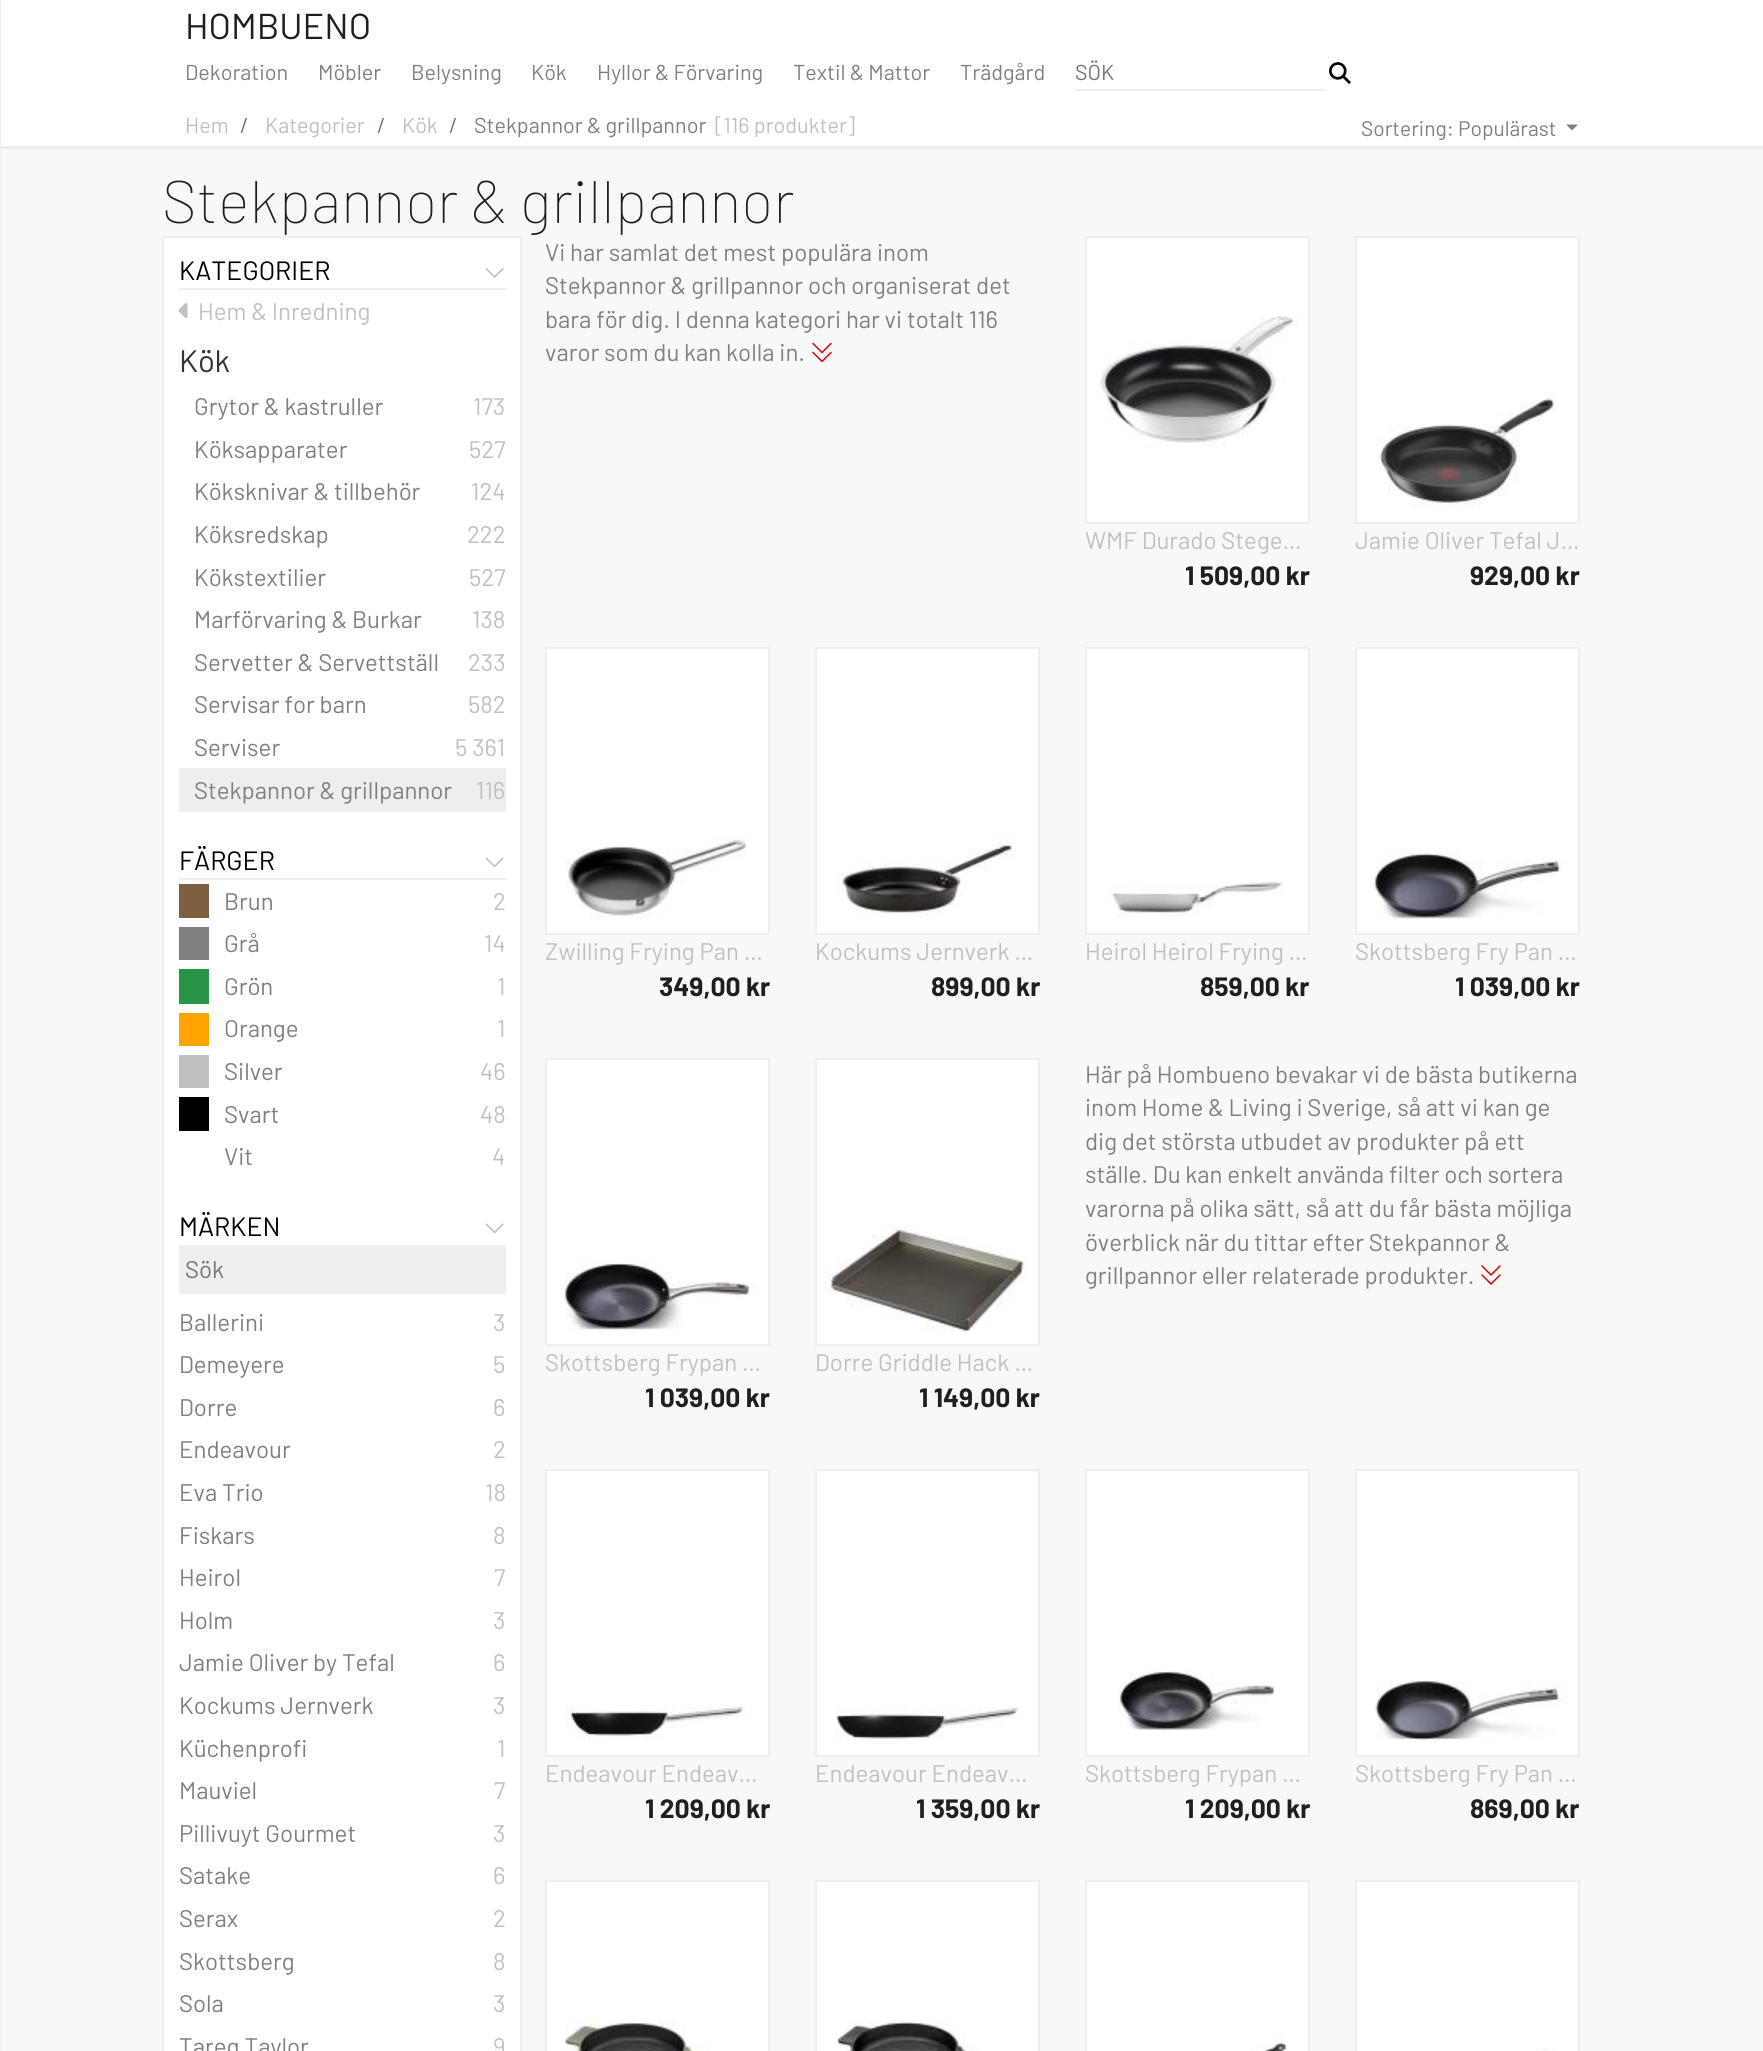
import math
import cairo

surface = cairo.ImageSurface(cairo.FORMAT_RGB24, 1763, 2051)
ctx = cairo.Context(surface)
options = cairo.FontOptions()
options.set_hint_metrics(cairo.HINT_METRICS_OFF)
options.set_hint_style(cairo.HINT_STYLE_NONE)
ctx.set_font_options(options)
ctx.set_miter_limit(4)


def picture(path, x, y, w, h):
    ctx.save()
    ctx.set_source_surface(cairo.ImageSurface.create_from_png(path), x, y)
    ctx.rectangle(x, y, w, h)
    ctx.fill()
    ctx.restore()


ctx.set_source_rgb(0.969, 0.969, 0.969)
ctx.paint()
ctx.set_source_rgb(0.933, 0.933, 0.933)
ctx.rectangle(0, 146, 1763, 3)
ctx.fill()
ctx.rectangle(0, 0, 1, 2051)
ctx.fill()
ctx.set_source_rgb(1, 1, 1)
ctx.rectangle(1, 0, 1762, 146)
ctx.fill()
ctx.select_font_face("Barlow")
ctx.set_font_size(36)
ctx.set_source_rgb(0.122, 0.122, 0.122)
ctx.move_to(185, 39)
ctx.show_text("HOMBUENO")
ctx.set_font_size(21.6)
ctx.set_source_rgb(0.502, 0.502, 0.502)
ctx.move_to(185, 80)
ctx.show_text("Dekoration")
ctx.move_to(318, 80)
ctx.show_text("Möbler")
ctx.move_to(411, 80)
ctx.show_text("Belysning")
ctx.move_to(531, 80)
ctx.show_text("Kök")
ctx.move_to(597, 80)
ctx.show_text("Hyllor & Förvaring")
ctx.move_to(793, 80)
ctx.show_text("Textil & Mattor")
ctx.move_to(960, 80)
ctx.show_text("Trädgård")
ctx.set_source_rgb(0.933, 0.933, 0.933)
ctx.rectangle(1076, 89, 249, 2)
ctx.fill()
ctx.set_source_rgb(0.459, 0.459, 0.459)
ctx.move_to(1075, 80)
ctx.show_text("SÖK")
picture("img1.png", 1329, 62, 22, 22)
ctx.set_source_rgb(0.753, 0.753, 0.753)
ctx.move_to(185, 133)
ctx.show_text("Hem")
ctx.set_source_rgb(0.424, 0.459, 0.49)
ctx.move_to(240, 133)
ctx.show_text("/")
ctx.set_source_rgb(0.753, 0.753, 0.753)
ctx.move_to(265, 133)
ctx.show_text("Kategorier")
ctx.set_source_rgb(0.424, 0.459, 0.49)
ctx.move_to(377, 133)
ctx.show_text("/")
ctx.set_source_rgb(0.753, 0.753, 0.753)
ctx.move_to(402, 133)
ctx.show_text("Kök")
ctx.set_source_rgb(0.424, 0.459, 0.49)
ctx.move_to(449, 133)
ctx.show_text("/")
ctx.set_source_rgb(0.502, 0.502, 0.502)
ctx.move_to(474, 133)
ctx.show_text("Stekpannor & grillpannor")
ctx.set_source_rgb(0.753, 0.753, 0.753)
ctx.move_to(715, 133)
ctx.show_text("[116 produkter]")
ctx.set_font_size(21)
ctx.set_source_rgb(0.502, 0.502, 0.502)
ctx.move_to(1361, 136)
ctx.show_text("Sortering: Populärast")
ctx.new_path()
ctx.move_to(1566, 124.5)
ctx.line_to(1578, 124.5)
ctx.line_to(1572, 130.5)
ctx.close_path()
ctx.fill()
ctx.select_font_face("Barlow Thin")
ctx.set_font_size(60)
ctx.set_source_rgb(0.122, 0.122, 0.122)
ctx.move_to(162, 223)
ctx.show_text("Stekpannor & grillpannor")
ctx.set_source_rgb(1, 1, 1)
ctx.rectangle(163, 237, 358, 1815)
ctx.fill_preserve()
ctx.set_source_rgb(0.933, 0.933, 0.933)
ctx.stroke()
ctx.rectangle(179, 288, 327, 2)
ctx.fill()
ctx.select_font_face("Barlow")
ctx.set_font_size(26.5)
ctx.set_source_rgb(0, 0, 0)
ctx.move_to(179, 280)
ctx.show_text("KATEGORIER")
picture("img2.png", 485, 268, 19, 10)
picture("img3.png", 178, 303, 10, 15)
ctx.set_font_size(24)
ctx.set_source_rgb(0.753, 0.753, 0.753)
ctx.move_to(198, 320)
ctx.show_text("Hem & Inredning")
ctx.set_font_size(31)
ctx.set_source_rgb(0.204, 0.204, 0.204)
ctx.move_to(179, 372)
ctx.show_text("Kök")
ctx.set_font_size(24)
ctx.set_source_rgb(0.502, 0.502, 0.502)
ctx.move_to(194, 415)
ctx.show_text("Grytor & kastruller")
ctx.set_source_rgb(0.753, 0.753, 0.753)
ctx.move_to(473, 415)
ctx.show_text("173")
ctx.set_source_rgb(0.502, 0.502, 0.502)
ctx.move_to(194, 458)
ctx.show_text("Köksapparater")
ctx.set_source_rgb(0.753, 0.753, 0.753)
ctx.move_to(469, 458)
ctx.show_text("527")
ctx.set_source_rgb(0.502, 0.502, 0.502)
ctx.move_to(194, 500)
ctx.show_text("Köksknivar & tillbehör")
ctx.set_source_rgb(0.753, 0.753, 0.753)
ctx.move_to(471, 500)
ctx.show_text("124")
ctx.set_source_rgb(0.502, 0.502, 0.502)
ctx.move_to(194, 543)
ctx.show_text("Köksredskap")
ctx.set_source_rgb(0.753, 0.753, 0.753)
ctx.move_to(467, 543)
ctx.show_text("222")
ctx.set_source_rgb(0.502, 0.502, 0.502)
ctx.move_to(194, 586)
ctx.show_text("Kökstextilier")
ctx.set_source_rgb(0.753, 0.753, 0.753)
ctx.move_to(469, 586)
ctx.show_text("527")
ctx.set_source_rgb(0.502, 0.502, 0.502)
ctx.move_to(194, 628)
ctx.show_text("Marförvaring & Burkar")
ctx.set_source_rgb(0.753, 0.753, 0.753)
ctx.move_to(472, 628)
ctx.show_text("138")
ctx.set_source_rgb(0.502, 0.502, 0.502)
ctx.move_to(194, 671)
ctx.show_text("Servetter & Servettställ")
ctx.set_source_rgb(0.753, 0.753, 0.753)
ctx.move_to(468, 671)
ctx.show_text("233")
ctx.set_source_rgb(0.502, 0.502, 0.502)
ctx.move_to(194, 713)
ctx.show_text("Servisar for barn")
ctx.set_source_rgb(0.753, 0.753, 0.753)
ctx.move_to(468, 713)
ctx.show_text("582")
ctx.set_source_rgb(0.502, 0.502, 0.502)
ctx.move_to(194, 756)
ctx.show_text("Serviser")
ctx.set_source_rgb(0.753, 0.753, 0.753)
ctx.move_to(455, 756)
ctx.show_text("5 361")
ctx.set_source_rgb(0.933, 0.933, 0.933)
ctx.rectangle(179, 768, 327, 44)
ctx.fill()
ctx.set_source_rgb(0.502, 0.502, 0.502)
ctx.move_to(194, 799)
ctx.show_text("Stekpannor & grillpannor")
ctx.set_source_rgb(0.753, 0.753, 0.753)
ctx.move_to(476, 799)
ctx.show_text("116")
ctx.set_source_rgb(0.933, 0.933, 0.933)
ctx.rectangle(179, 878, 327, 2)
ctx.fill()
ctx.set_font_size(26.5)
ctx.set_source_rgb(0, 0, 0)
ctx.move_to(179, 870)
ctx.show_text("FÄRGER")
picture("img4.png", 485, 857, 19, 11)
ctx.set_source_rgb(0.498, 0.373, 0.259)
ctx.rectangle(179, 884, 30, 34)
ctx.fill()
ctx.set_font_size(24)
ctx.set_source_rgb(0.502, 0.502, 0.502)
ctx.move_to(224, 910)
ctx.show_text("Brun")
ctx.set_source_rgb(0.753, 0.753, 0.753)
ctx.move_to(493, 910)
ctx.show_text("2")
ctx.set_source_rgb(0.502, 0.502, 0.502)
ctx.rectangle(179, 927, 30, 33)
ctx.fill()
ctx.move_to(224, 952)
ctx.show_text("Grå")
ctx.set_source_rgb(0.753, 0.753, 0.753)
ctx.move_to(484, 952)
ctx.show_text("14")
ctx.set_source_rgb(0.157, 0.584, 0.275)
ctx.rectangle(179, 969, 30, 35)
ctx.fill()
ctx.set_source_rgb(0.502, 0.502, 0.502)
ctx.move_to(224, 995)
ctx.show_text("Grön")
ctx.set_source_rgb(0.753, 0.753, 0.753)
ctx.move_to(497, 995)
ctx.show_text("1")
ctx.set_source_rgb(1, 0.647, 0)
ctx.rectangle(179, 1013, 30, 33)
ctx.fill()
ctx.set_source_rgb(0.502, 0.502, 0.502)
ctx.move_to(224, 1037)
ctx.show_text("Orange")
ctx.set_source_rgb(0.753, 0.753, 0.753)
ctx.move_to(497, 1037)
ctx.show_text("1")
ctx.rectangle(179, 1055, 30, 33)
ctx.fill()
ctx.set_source_rgb(0.502, 0.502, 0.502)
ctx.move_to(224, 1080)
ctx.show_text("Silver")
ctx.set_source_rgb(0.753, 0.753, 0.753)
ctx.move_to(480, 1080)
ctx.show_text("46")
ctx.set_source_rgb(0, 0, 0)
ctx.rectangle(179, 1097, 30, 34)
ctx.fill()
ctx.set_source_rgb(0.502, 0.502, 0.502)
ctx.move_to(224, 1123)
ctx.show_text("Svart")
ctx.set_source_rgb(0.753, 0.753, 0.753)
ctx.move_to(480, 1123)
ctx.show_text("48")
ctx.set_source_rgb(0.502, 0.502, 0.502)
ctx.move_to(224, 1165)
ctx.show_text("Vit")
ctx.set_source_rgb(0.753, 0.753, 0.753)
ctx.move_to(492, 1165)
ctx.show_text("4")
ctx.set_source_rgb(0.933, 0.933, 0.933)
ctx.rectangle(179, 1245, 327, 49)
ctx.fill()
ctx.set_font_size(26.5)
ctx.set_source_rgb(0, 0, 0)
ctx.move_to(179, 1236)
ctx.show_text("MÄRKEN")
picture("img4.png", 485, 1223, 19, 11)
ctx.set_font_size(24)
ctx.set_source_rgb(0.459, 0.459, 0.459)
ctx.move_to(185, 1278)
ctx.show_text("Sök")
ctx.set_source_rgb(0.502, 0.502, 0.502)
ctx.move_to(179, 1331)
ctx.show_text("Ballerini")
ctx.set_source_rgb(0.753, 0.753, 0.753)
ctx.move_to(493, 1331)
ctx.show_text("3")
ctx.set_source_rgb(0.502, 0.502, 0.502)
ctx.move_to(179, 1373)
ctx.show_text("Demeyere")
ctx.set_source_rgb(0.753, 0.753, 0.753)
ctx.move_to(493, 1373)
ctx.show_text("5")
ctx.set_source_rgb(0.502, 0.502, 0.502)
ctx.move_to(179, 1416)
ctx.show_text("Dorre")
ctx.set_source_rgb(0.753, 0.753, 0.753)
ctx.move_to(493, 1416)
ctx.show_text("6")
ctx.set_source_rgb(0.502, 0.502, 0.502)
ctx.move_to(179, 1458)
ctx.show_text("Endeavour")
ctx.set_source_rgb(0.753, 0.753, 0.753)
ctx.move_to(493, 1458)
ctx.show_text("2")
ctx.set_source_rgb(0.502, 0.502, 0.502)
ctx.move_to(179, 1501)
ctx.show_text("Eva Trio")
ctx.set_source_rgb(0.753, 0.753, 0.753)
ctx.move_to(485, 1501)
ctx.show_text("18")
ctx.set_source_rgb(0.502, 0.502, 0.502)
ctx.move_to(179, 1544)
ctx.show_text("Fiskars")
ctx.set_source_rgb(0.753, 0.753, 0.753)
ctx.move_to(493, 1544)
ctx.show_text("8")
ctx.set_source_rgb(0.502, 0.502, 0.502)
ctx.move_to(179, 1586)
ctx.show_text("Heirol")
ctx.set_source_rgb(0.753, 0.753, 0.753)
ctx.move_to(494, 1586)
ctx.show_text("7")
ctx.set_source_rgb(0.502, 0.502, 0.502)
ctx.move_to(179, 1629)
ctx.show_text("Holm")
ctx.set_source_rgb(0.753, 0.753, 0.753)
ctx.move_to(493, 1629)
ctx.show_text("3")
ctx.set_source_rgb(0.502, 0.502, 0.502)
ctx.move_to(179, 1671)
ctx.show_text("Jamie Oliver by Tefal")
ctx.set_source_rgb(0.753, 0.753, 0.753)
ctx.move_to(493, 1671)
ctx.show_text("6")
ctx.set_source_rgb(0.502, 0.502, 0.502)
ctx.move_to(179, 1714)
ctx.show_text("Kockums Jernverk")
ctx.set_source_rgb(0.753, 0.753, 0.753)
ctx.move_to(493, 1714)
ctx.show_text("3")
ctx.set_source_rgb(0.502, 0.502, 0.502)
ctx.move_to(179, 1757)
ctx.show_text("Küchenprofi")
ctx.set_source_rgb(0.753, 0.753, 0.753)
ctx.move_to(497, 1757)
ctx.show_text("1")
ctx.set_source_rgb(0.502, 0.502, 0.502)
ctx.move_to(179, 1799)
ctx.show_text("Mauviel")
ctx.set_source_rgb(0.753, 0.753, 0.753)
ctx.move_to(494, 1799)
ctx.show_text("7")
ctx.set_source_rgb(0.502, 0.502, 0.502)
ctx.move_to(179, 1842)
ctx.show_text("Pillivuyt Gourmet")
ctx.set_source_rgb(0.753, 0.753, 0.753)
ctx.move_to(493, 1842)
ctx.show_text("3")
ctx.set_source_rgb(0.502, 0.502, 0.502)
ctx.move_to(179, 1884)
ctx.show_text("Satake")
ctx.set_source_rgb(0.753, 0.753, 0.753)
ctx.move_to(493, 1884)
ctx.show_text("6")
ctx.set_source_rgb(0.502, 0.502, 0.502)
ctx.move_to(179, 1927)
ctx.show_text("Serax")
ctx.set_source_rgb(0.753, 0.753, 0.753)
ctx.move_to(493, 1927)
ctx.show_text("2")
ctx.set_source_rgb(0.502, 0.502, 0.502)
ctx.move_to(179, 1970)
ctx.show_text("Skottsberg")
ctx.set_source_rgb(0.753, 0.753, 0.753)
ctx.move_to(493, 1970)
ctx.show_text("8")
ctx.set_source_rgb(0.502, 0.502, 0.502)
ctx.move_to(179, 2012)
ctx.show_text("Sola")
ctx.set_source_rgb(0.753, 0.753, 0.753)
ctx.move_to(493, 2012)
ctx.show_text("3")
ctx.set_source_rgb(0.502, 0.502, 0.502)
ctx.move_to(179, 2055)
ctx.show_text("Tareq Taylor")
ctx.set_source_rgb(0.753, 0.753, 0.753)
ctx.move_to(493, 2055)
ctx.show_text("9")
ctx.set_source_rgb(0.502, 0.502, 0.502)
ctx.move_to(545, 261)
ctx.show_text("Vi har samlat det mest populära inom")
ctx.move_to(545, 294)
ctx.show_text("Stekpannor & grillpannor och organiserat det")
ctx.move_to(545, 328)
ctx.show_text("bara för dig. I denna kategori har vi totalt 116")
ctx.move_to(545, 361)
ctx.show_text("varor som du kan kolla in.")
picture("img5.png", 812, 342, 20, 21)
ctx.set_source_rgb(1, 1, 1)
ctx.rectangle(1086, 237, 223, 286)
ctx.fill_preserve()
ctx.set_source_rgb(0.933, 0.933, 0.933)
ctx.stroke()
picture("img6.png", 1094, 316, 204, 132)
ctx.set_source_rgb(0.753, 0.753, 0.753)
ctx.move_to(1085, 549)
ctx.show_text("WMF Durado Stege…")
ctx.select_font_face("Barlow", cairo.FONT_SLANT_NORMAL, cairo.FONT_WEIGHT_BOLD)
ctx.set_font_size(26.5)
ctx.set_source_rgb(0.122, 0.122, 0.122)
ctx.move_to(1185, 585)
ctx.show_text("1 509,00 kr")
ctx.set_source_rgb(1, 1, 1)
ctx.rectangle(1356, 237, 223, 286)
ctx.fill_preserve()
ctx.set_source_rgb(0.933, 0.933, 0.933)
ctx.stroke()
picture("img7.png", 1376, 392, 180, 116)
ctx.select_font_face("Barlow")
ctx.set_font_size(24)
ctx.set_source_rgb(0.753, 0.753, 0.753)
ctx.move_to(1355, 549)
ctx.show_text("Jamie Oliver Tefal J…")
ctx.select_font_face("Barlow", cairo.FONT_SLANT_NORMAL, cairo.FONT_WEIGHT_BOLD)
ctx.set_font_size(26.5)
ctx.set_source_rgb(0.122, 0.122, 0.122)
ctx.move_to(1470, 585)
ctx.show_text("929,00 kr")
ctx.set_source_rgb(1, 1, 1)
ctx.rectangle(546, 648, 223, 286)
ctx.fill_preserve()
ctx.set_source_rgb(0.933, 0.933, 0.933)
ctx.stroke()
picture("img8.png", 566, 836, 180, 83)
ctx.select_font_face("Barlow")
ctx.set_font_size(24)
ctx.set_source_rgb(0.753, 0.753, 0.753)
ctx.move_to(545, 960)
ctx.show_text("Zwilling Frying Pan …")
ctx.select_font_face("Barlow", cairo.FONT_SLANT_NORMAL, cairo.FONT_WEIGHT_BOLD)
ctx.set_font_size(26.5)
ctx.set_source_rgb(0.122, 0.122, 0.122)
ctx.move_to(659, 996)
ctx.show_text("349,00 kr")
ctx.set_source_rgb(1, 1, 1)
ctx.rectangle(816, 648, 223, 286)
ctx.fill_preserve()
ctx.set_source_rgb(0.933, 0.933, 0.933)
ctx.stroke()
picture("img9.png", 836, 835, 180, 84)
ctx.select_font_face("Barlow")
ctx.set_font_size(24)
ctx.set_source_rgb(0.753, 0.753, 0.753)
ctx.move_to(815, 960)
ctx.show_text("Kockums Jernverk …")
ctx.select_font_face("Barlow", cairo.FONT_SLANT_NORMAL, cairo.FONT_WEIGHT_BOLD)
ctx.set_font_size(26.5)
ctx.set_source_rgb(0.122, 0.122, 0.122)
ctx.move_to(931, 996)
ctx.show_text("899,00 kr")
ctx.set_source_rgb(1, 1, 1)
ctx.rectangle(1086, 648, 223, 286)
ctx.fill_preserve()
ctx.set_source_rgb(0.933, 0.933, 0.933)
ctx.stroke()
picture("img10.png", 1107, 881, 176, 37)
ctx.select_font_face("Barlow")
ctx.set_font_size(24)
ctx.set_source_rgb(0.753, 0.753, 0.753)
ctx.move_to(1085, 960)
ctx.show_text("Heirol Heirol Frying …")
ctx.select_font_face("Barlow", cairo.FONT_SLANT_NORMAL, cairo.FONT_WEIGHT_BOLD)
ctx.set_font_size(26.5)
ctx.set_source_rgb(0.122, 0.122, 0.122)
ctx.move_to(1200, 996)
ctx.show_text("859,00 kr")
ctx.set_source_rgb(1, 1, 1)
ctx.rectangle(1356, 648, 223, 286)
ctx.fill_preserve()
ctx.set_source_rgb(0.933, 0.933, 0.933)
ctx.stroke()
picture("img11.png", 1373, 848, 193, 72)
ctx.select_font_face("Barlow")
ctx.set_font_size(24)
ctx.set_source_rgb(0.753, 0.753, 0.753)
ctx.move_to(1355, 960)
ctx.show_text("Skottsberg Fry Pan …")
ctx.select_font_face("Barlow", cairo.FONT_SLANT_NORMAL, cairo.FONT_WEIGHT_BOLD)
ctx.set_font_size(26.5)
ctx.set_source_rgb(0.122, 0.122, 0.122)
ctx.move_to(1455, 996)
ctx.show_text("1 039,00 kr")
ctx.select_font_face("Barlow")
ctx.set_font_size(24)
ctx.set_source_rgb(0.502, 0.502, 0.502)
ctx.move_to(1085, 1083)
ctx.show_text("Här på Hombueno bevakar vi de bästa butikerna")
ctx.move_to(1085, 1116)
ctx.show_text("inom Home & Living i Sverige, så att vi kan ge")
ctx.move_to(1085, 1150)
ctx.show_text("dig det största utbudet av produkter på ett")
ctx.move_to(1085, 1183)
ctx.show_text("ställe. Du kan enkelt använda filter och sortera")
ctx.move_to(1085, 1217)
ctx.show_text("varorna på olika sätt, så att du får bästa möjliga")
ctx.move_to(1085, 1251)
ctx.show_text("överblick när du tittar efter Stekpannor &")
ctx.move_to(1085, 1284)
ctx.show_text("grillpannor eller relaterade produkter.")
picture("img12.png", 1481, 1265, 20, 20)
ctx.set_source_rgb(1, 1, 1)
ctx.rectangle(546, 1059, 223, 286)
ctx.fill_preserve()
ctx.set_source_rgb(0.933, 0.933, 0.933)
ctx.stroke()
picture("img13.png", 563, 1259, 194, 72)
ctx.set_source_rgb(0.753, 0.753, 0.753)
ctx.move_to(545, 1371)
ctx.show_text("Skottsberg Frypan …")
ctx.select_font_face("Barlow", cairo.FONT_SLANT_NORMAL, cairo.FONT_WEIGHT_BOLD)
ctx.set_font_size(26.5)
ctx.set_source_rgb(0.122, 0.122, 0.122)
ctx.move_to(645, 1407)
ctx.show_text("1 039,00 kr")
ctx.set_source_rgb(1, 1, 1)
ctx.rectangle(816, 1059, 223, 286)
ctx.fill_preserve()
ctx.set_source_rgb(0.933, 0.933, 0.933)
ctx.stroke()
picture("img14.png", 823, 1223, 205, 110)
ctx.select_font_face("Barlow")
ctx.set_font_size(24)
ctx.set_source_rgb(0.753, 0.753, 0.753)
ctx.move_to(815, 1371)
ctx.show_text("Dorre Griddle Hack …")
ctx.select_font_face("Barlow", cairo.FONT_SLANT_NORMAL, cairo.FONT_WEIGHT_BOLD)
ctx.set_font_size(26.5)
ctx.set_source_rgb(0.122, 0.122, 0.122)
ctx.move_to(919, 1407)
ctx.show_text("1 149,00 kr")
ctx.set_source_rgb(1, 1, 1)
ctx.rectangle(546, 1470, 223, 286)
ctx.fill_preserve()
ctx.set_source_rgb(0.933, 0.933, 0.933)
ctx.stroke()
picture("img15.png", 566, 1705, 180, 35)
ctx.select_font_face("Barlow")
ctx.set_font_size(24)
ctx.set_source_rgb(0.753, 0.753, 0.753)
ctx.move_to(545, 1782)
ctx.show_text("Endeavour Endeav…")
ctx.select_font_face("Barlow", cairo.FONT_SLANT_NORMAL, cairo.FONT_WEIGHT_BOLD)
ctx.set_font_size(26.5)
ctx.set_source_rgb(0.122, 0.122, 0.122)
ctx.move_to(645, 1818)
ctx.show_text("1 209,00 kr")
ctx.set_source_rgb(1, 1, 1)
ctx.rectangle(816, 1470, 223, 286)
ctx.fill_preserve()
ctx.set_source_rgb(0.933, 0.933, 0.933)
ctx.stroke()
picture("img16.png", 835, 1706, 192, 35)
ctx.select_font_face("Barlow")
ctx.set_font_size(24)
ctx.set_source_rgb(0.753, 0.753, 0.753)
ctx.move_to(815, 1782)
ctx.show_text("Endeavour Endeav…")
ctx.select_font_face("Barlow", cairo.FONT_SLANT_NORMAL, cairo.FONT_WEIGHT_BOLD)
ctx.set_font_size(26.5)
ctx.set_source_rgb(0.122, 0.122, 0.122)
ctx.move_to(916, 1818)
ctx.show_text("1 359,00 kr")
ctx.set_source_rgb(1, 1, 1)
ctx.rectangle(1086, 1470, 223, 286)
ctx.fill_preserve()
ctx.set_source_rgb(0.933, 0.933, 0.933)
ctx.stroke()
picture("img17.png", 1118, 1670, 156, 60)
ctx.select_font_face("Barlow")
ctx.set_font_size(24)
ctx.set_source_rgb(0.753, 0.753, 0.753)
ctx.move_to(1085, 1782)
ctx.show_text("Skottsberg Frypan …")
ctx.select_font_face("Barlow", cairo.FONT_SLANT_NORMAL, cairo.FONT_WEIGHT_BOLD)
ctx.set_font_size(26.5)
ctx.set_source_rgb(0.122, 0.122, 0.122)
ctx.move_to(1185, 1818)
ctx.show_text("1 209,00 kr")
ctx.set_source_rgb(1, 1, 1)
ctx.rectangle(1356, 1470, 223, 286)
ctx.fill_preserve()
ctx.set_source_rgb(0.933, 0.933, 0.933)
ctx.stroke()
picture("img18.png", 1375, 1680, 193, 62)
ctx.select_font_face("Barlow")
ctx.set_font_size(24)
ctx.set_source_rgb(0.753, 0.753, 0.753)
ctx.move_to(1355, 1782)
ctx.show_text("Skottsberg Fry Pan …")
ctx.select_font_face("Barlow", cairo.FONT_SLANT_NORMAL, cairo.FONT_WEIGHT_BOLD)
ctx.set_font_size(26.5)
ctx.set_source_rgb(0.122, 0.122, 0.122)
ctx.move_to(1470, 1818)
ctx.show_text("869,00 kr")
ctx.set_source_rgb(1, 1, 1)
ctx.rectangle(546, 1881, 223, 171)
ctx.fill_preserve()
ctx.set_source_rgb(0.933, 0.933, 0.933)
ctx.stroke()
picture("img19.png", 565, 2020, 144, 31)
ctx.set_source_rgb(1, 1, 1)
ctx.rectangle(816, 1881, 223, 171)
ctx.fill_preserve()
ctx.set_source_rgb(0.933, 0.933, 0.933)
ctx.stroke()
picture("img20.png", 835, 2021, 144, 30)
ctx.set_source_rgb(1, 1, 1)
ctx.rectangle(1086, 1881, 223, 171)
ctx.fill_preserve()
ctx.set_source_rgb(0.933, 0.933, 0.933)
ctx.stroke()
picture("img21.png", 1250, 2032, 38, 19)
ctx.set_source_rgb(1, 1, 1)
ctx.rectangle(1356, 1881, 223, 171)
ctx.fill_preserve()
ctx.set_source_rgb(0.933, 0.933, 0.933)
ctx.stroke()
picture("img22.png", 1536, 2047, 18, 4)
surface.write_to_png("page.png")
